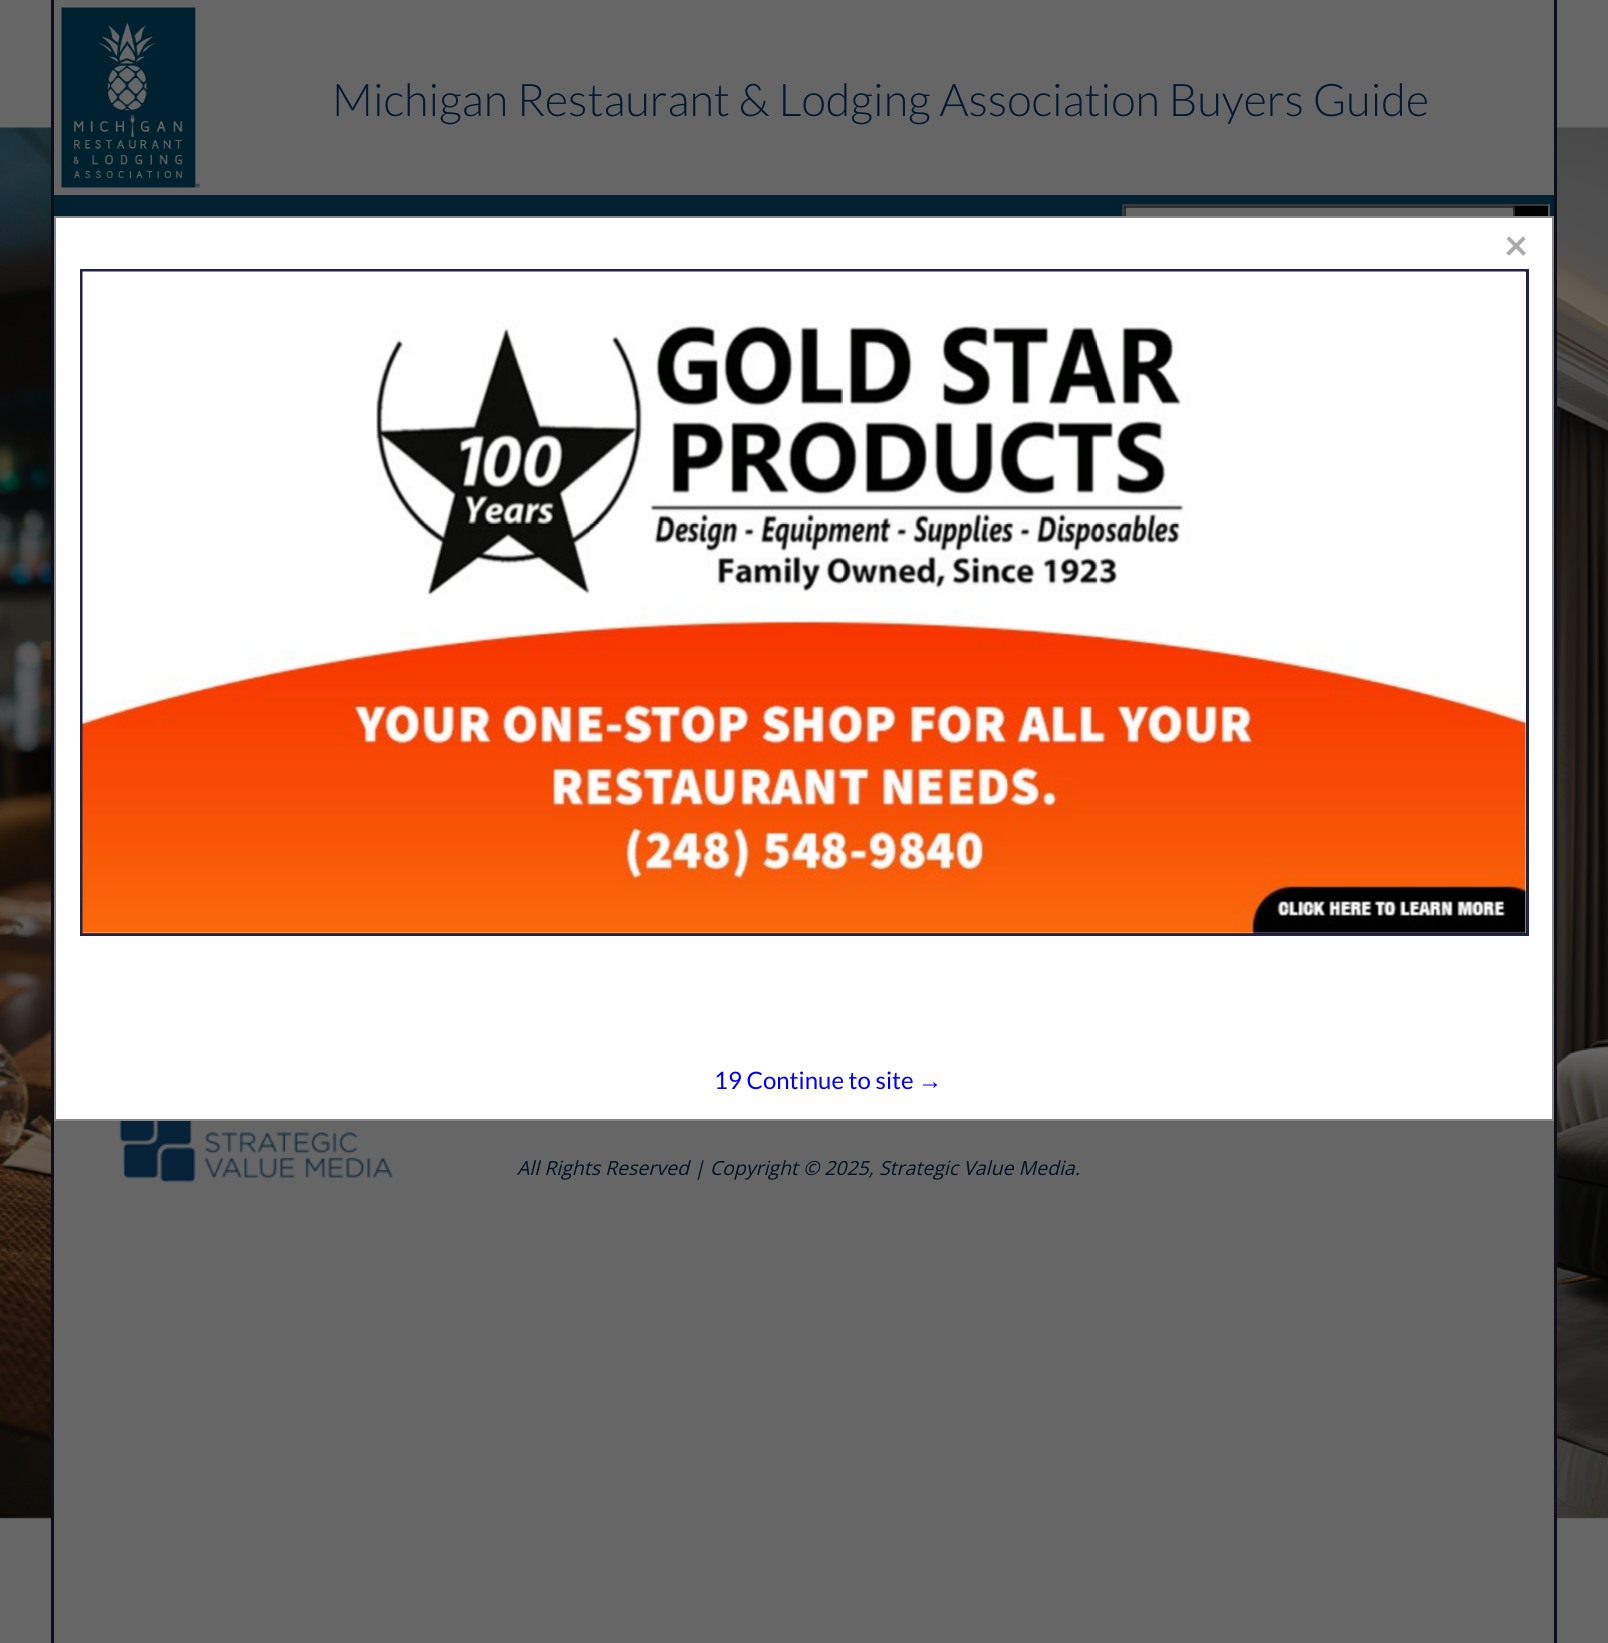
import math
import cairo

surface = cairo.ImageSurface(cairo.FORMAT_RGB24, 1608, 1643)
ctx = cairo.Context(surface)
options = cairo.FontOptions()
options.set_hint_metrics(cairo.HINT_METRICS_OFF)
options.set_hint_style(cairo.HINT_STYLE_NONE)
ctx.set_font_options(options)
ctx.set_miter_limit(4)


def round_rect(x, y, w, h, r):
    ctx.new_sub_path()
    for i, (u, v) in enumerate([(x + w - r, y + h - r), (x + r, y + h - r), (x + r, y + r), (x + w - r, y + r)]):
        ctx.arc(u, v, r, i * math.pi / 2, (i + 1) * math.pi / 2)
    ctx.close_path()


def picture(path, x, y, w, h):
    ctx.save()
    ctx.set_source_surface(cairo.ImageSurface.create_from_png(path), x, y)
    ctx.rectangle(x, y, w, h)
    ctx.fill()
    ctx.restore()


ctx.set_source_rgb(0.4, 0.4, 0.4)
ctx.paint()
picture("img1.png", 0, 127, 1608, 1392)
ctx.set_source_rgb(0.4, 0.4, 0.4)
ctx.rectangle(54, 128, 1, 1390)
ctx.fill()
ctx.set_source_rgb(0.051, 0.055, 0.102)
ctx.rectangle(1554, 0, 3, 1643)
ctx.fill()
ctx.rectangle(51, 0, 3, 1643)
ctx.fill()
picture("img2.png", 61, 7, 139, 181)
ctx.select_font_face("Lato Light")
ctx.set_font_size(45)
ctx.set_source_rgb(0.008, 0.098, 0.192)
ctx.move_to(332, 116)
ctx.show_text("Michigan Restaurant & Lodging Association Buyers Guide")
ctx.set_source_rgb(0, 0.133, 0.188)
ctx.rectangle(54, 195, 1500, 21)
ctx.fill()
ctx.set_source_rgb(0.224, 0.224, 0.224)
ctx.rectangle(1122, 204, 428, 2)
ctx.fill()
ctx.set_source_rgb(0.337, 0.337, 0.337)
ctx.rectangle(1548, 204, 2, 12)
ctx.fill()
ctx.set_source_rgb(0.224, 0.224, 0.224)
ctx.rectangle(1122, 204, 2, 12)
ctx.fill()
ctx.set_source_rgb(0.4, 0.4, 0.4)
round_rect(1125, 207, 389, 32, 2)
ctx.fill_preserve()
ctx.set_source_rgb(0.184, 0.184, 0.184)
ctx.stroke()
ctx.set_source_rgb(0, 0, 0)
ctx.rectangle(1515, 206, 33, 10)
ctx.fill()
ctx.set_source_rgb(0.996, 0.996, 0.996)
ctx.rectangle(55, 217, 1498, 903)
ctx.fill_preserve()
ctx.set_source_rgb(0.533, 0.533, 0.533)
ctx.stroke()
ctx.select_font_face("Lato", cairo.FONT_SLANT_NORMAL, cairo.FONT_WEIGHT_BOLD)
ctx.set_font_size(42)
ctx.set_source_rgb(0.667, 0.667, 0.667)
ctx.move_to(1504, 260)
ctx.show_text("×")
ctx.rectangle(81.5, 270.5, 1446, 664)
ctx.set_source_rgb(0.129, 0.137, 0.259)
ctx.set_line_width(3)
ctx.stroke()
picture("img3.png", 82, 271, 1444, 663)
ctx.select_font_face("Lato")
ctx.set_font_size(24)
ctx.set_source_rgb(0, 0, 1)
ctx.move_to(714, 1089)
ctx.show_text("19 Continue to site")
ctx.select_font_face("Liberation Sans")
ctx.move_to(918, 1089)
ctx.show_text("→")
picture("img4.png", 119, 1121, 275, 62)
ctx.select_font_face("Open Sans", cairo.FONT_SLANT_ITALIC)
ctx.set_font_size(19.5)
ctx.set_source_rgb(0, 0.082, 0.149)
ctx.move_to(517, 1175)
ctx.show_text("All Rights Reserved | Copyright © 2025, Strategic Value Media.")
surface.write_to_png("page.png")
